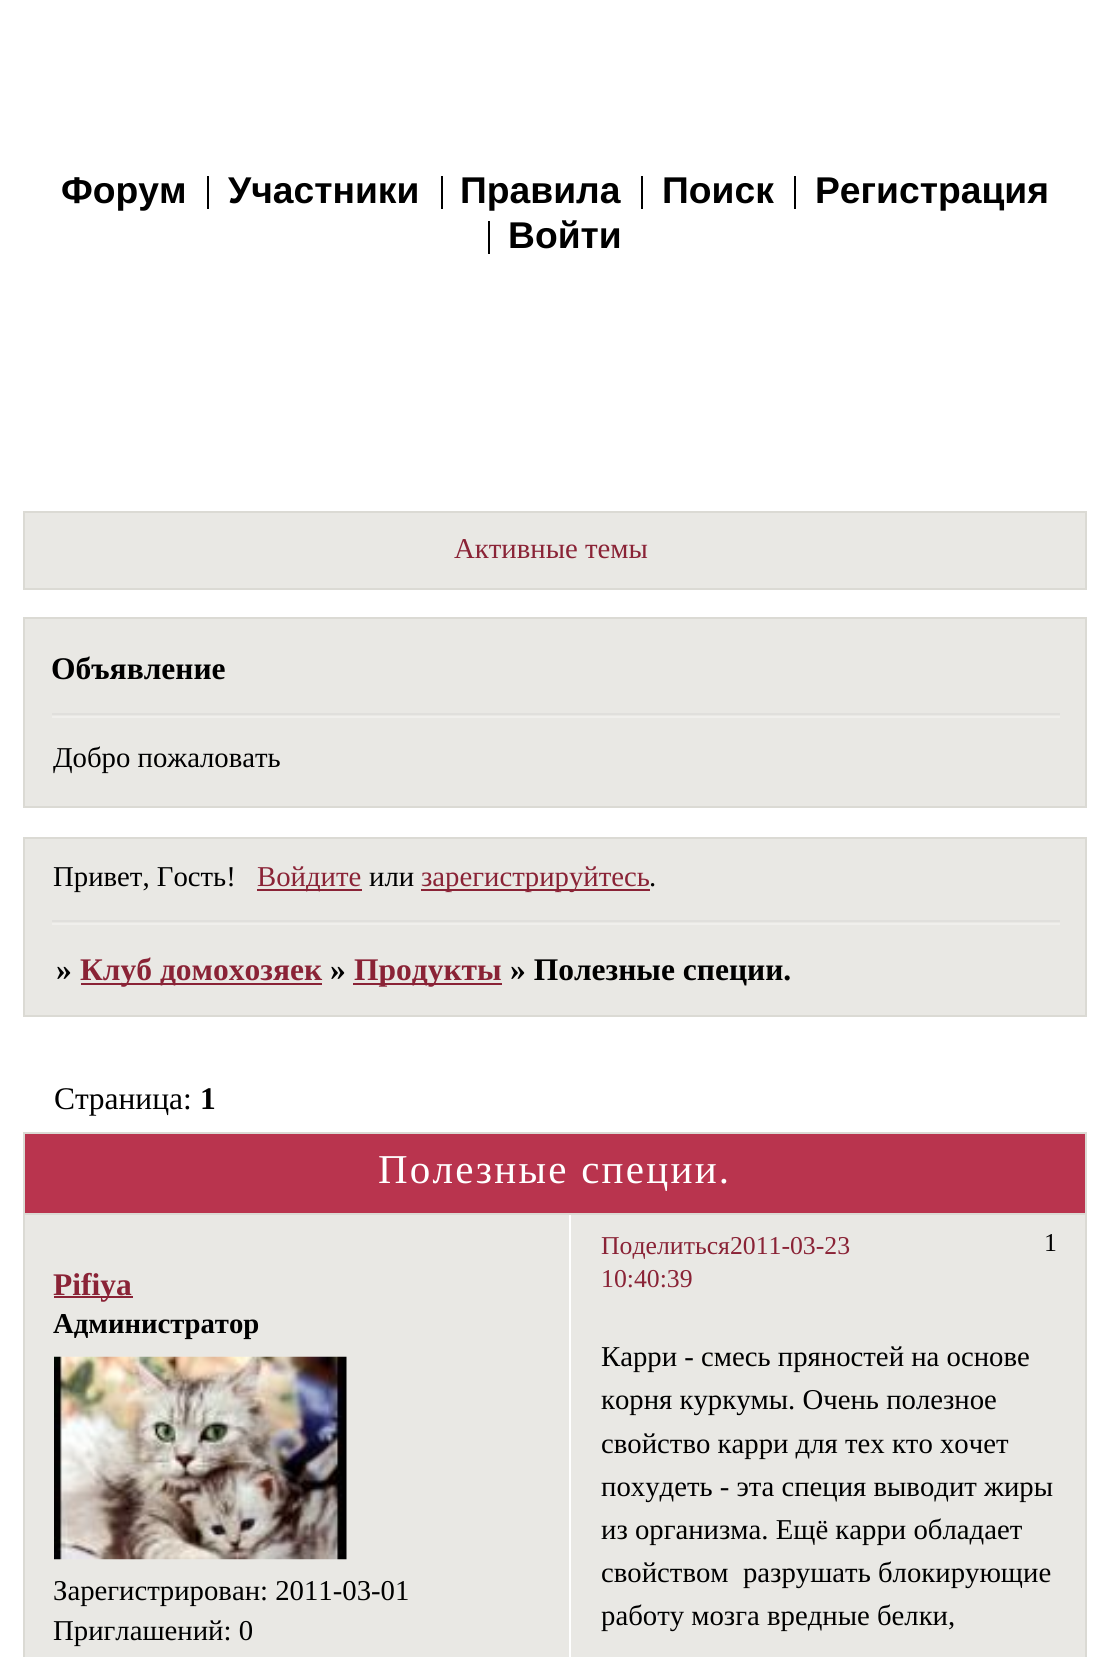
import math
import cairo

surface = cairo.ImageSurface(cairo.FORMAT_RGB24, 1108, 1657)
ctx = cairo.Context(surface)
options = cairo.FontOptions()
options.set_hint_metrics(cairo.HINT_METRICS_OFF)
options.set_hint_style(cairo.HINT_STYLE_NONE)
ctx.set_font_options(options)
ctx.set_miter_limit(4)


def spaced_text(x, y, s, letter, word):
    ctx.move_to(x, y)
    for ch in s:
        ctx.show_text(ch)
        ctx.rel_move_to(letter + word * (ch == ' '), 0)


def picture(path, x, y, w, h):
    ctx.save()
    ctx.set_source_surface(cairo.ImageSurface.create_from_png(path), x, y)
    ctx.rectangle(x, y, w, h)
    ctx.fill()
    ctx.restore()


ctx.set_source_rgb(1, 1, 1)
ctx.paint()
ctx.select_font_face("Liberation Sans", cairo.FONT_SLANT_NORMAL, cairo.FONT_WEIGHT_BOLD)
ctx.set_font_size(37.25)
ctx.set_source_rgb(0, 0, 0)
ctx.move_to(61, 203)
ctx.show_text("Форум")
ctx.move_to(228, 203)
ctx.show_text("Участники")
ctx.rectangle(207, 176, 2, 33)
ctx.fill()
ctx.move_to(460, 203)
ctx.show_text("Правила")
ctx.rectangle(441, 176, 2, 33)
ctx.fill()
ctx.move_to(662, 203)
ctx.show_text("Поиск")
ctx.rectangle(641, 176, 2, 33)
ctx.fill()
ctx.move_to(815, 203)
ctx.show_text("Регистрация")
ctx.rectangle(794, 176, 2, 33)
ctx.fill()
ctx.move_to(508, 248)
ctx.show_text("Войти")
ctx.rectangle(488, 221, 2, 33)
ctx.fill()
ctx.set_source_rgb(0.914, 0.91, 0.894)
ctx.rectangle(24, 512, 1062, 77)
ctx.fill_preserve()
ctx.set_source_rgb(0.859, 0.855, 0.831)
ctx.stroke()
ctx.select_font_face("Liberation Serif")
ctx.set_font_size(28.75)
ctx.set_source_rgb(0.541, 0.137, 0.212)
ctx.move_to(454, 558)
ctx.show_text("Активные темы")
ctx.set_source_rgb(0.914, 0.91, 0.894)
ctx.rectangle(24, 618, 1062, 189)
ctx.fill_preserve()
ctx.set_source_rgb(0.859, 0.855, 0.831)
ctx.stroke()
ctx.set_source_rgb(0.941, 0.937, 0.922)
ctx.rectangle(52, 716, 1008, 2)
ctx.fill()
ctx.set_source_rgb(0.878, 0.875, 0.863)
ctx.rectangle(52, 713, 1008, 2)
ctx.fill()
ctx.select_font_face("Liberation Serif", cairo.FONT_SLANT_NORMAL, cairo.FONT_WEIGHT_BOLD)
ctx.set_font_size(31.5)
ctx.set_source_rgb(0, 0, 0)
ctx.move_to(51, 679)
ctx.show_text("Объявление")
ctx.select_font_face("Liberation Serif")
ctx.set_font_size(28.75)
ctx.move_to(53, 767)
ctx.show_text("Добро пожаловать")
ctx.set_source_rgb(0.914, 0.91, 0.894)
ctx.rectangle(25, 839, 1060, 176)
ctx.fill()
ctx.set_source_rgb(0.859, 0.855, 0.831)
ctx.rectangle(23, 837, 1064, 2)
ctx.fill()
ctx.rectangle(1085, 837, 2, 180)
ctx.fill()
ctx.rectangle(23, 837, 2, 88)
ctx.fill()
ctx.set_source_rgb(0, 0, 0)
ctx.move_to(53, 886)
ctx.show_text("Привет, Гость!")
ctx.set_source_rgb(0.541, 0.137, 0.212)
ctx.rectangle(257, 889, 105, 2)
ctx.fill()
ctx.move_to(257, 886)
ctx.show_text("Войдите")
ctx.set_source_rgb(0, 0, 0)
ctx.move_to(369, 886)
ctx.show_text("или")
ctx.set_source_rgb(0.541, 0.137, 0.212)
ctx.rectangle(421, 889, 229, 2)
ctx.fill()
ctx.move_to(421, 886)
ctx.show_text("зарегистрируйтесь")
ctx.set_source_rgb(0, 0, 0)
ctx.move_to(649, 886)
ctx.show_text(".")
ctx.set_source_rgb(0.878, 0.875, 0.863)
ctx.rectangle(52, 920, 1008, 2)
ctx.fill()
ctx.set_source_rgb(0.941, 0.937, 0.922)
ctx.rectangle(52, 923, 1008, 2)
ctx.fill()
ctx.set_source_rgb(0.859, 0.855, 0.831)
ctx.rectangle(23, 1015, 1064, 2)
ctx.fill()
ctx.rectangle(23, 920, 2, 97)
ctx.fill()
ctx.select_font_face("Liberation Serif", cairo.FONT_SLANT_NORMAL, cairo.FONT_WEIGHT_BOLD)
ctx.set_font_size(31.5)
ctx.set_source_rgb(0, 0, 0)
ctx.move_to(56, 980)
ctx.show_text("»")
ctx.set_source_rgb(0.541, 0.137, 0.212)
ctx.rectangle(81, 983, 241, 2)
ctx.fill()
ctx.move_to(80, 980)
ctx.show_text("Клуб домохозяек")
ctx.set_source_rgb(0, 0, 0)
ctx.move_to(330, 980)
ctx.show_text("»")
ctx.set_source_rgb(0.541, 0.137, 0.212)
ctx.rectangle(353, 983, 149, 2)
ctx.fill()
ctx.move_to(354, 980)
ctx.show_text("Продукты")
ctx.set_source_rgb(0, 0, 0)
ctx.move_to(510, 980)
ctx.show_text("» Полезные специи.")
ctx.select_font_face("Liberation Serif")
ctx.move_to(54, 1109)
ctx.show_text("Страница:")
ctx.select_font_face("Liberation Serif", cairo.FONT_SLANT_NORMAL, cairo.FONT_WEIGHT_BOLD)
ctx.move_to(200, 1109)
ctx.show_text("1")
ctx.set_source_rgb(0.725, 0.204, 0.306)
ctx.rectangle(25, 1134, 1060, 79)
ctx.fill()
ctx.set_source_rgb(0.859, 0.855, 0.831)
ctx.rectangle(23, 1132, 1064, 2)
ctx.fill()
ctx.rectangle(1085, 1132, 2, 81)
ctx.fill()
ctx.rectangle(23, 1132, 2, 81)
ctx.fill()
ctx.select_font_face("Liberation Serif")
ctx.set_font_size(41)
ctx.set_source_rgb(1, 1, 1)
spaced_text(378, 1183, "Полезные специи.", 2.25, 0)
ctx.set_source_rgb(0.914, 0.91, 0.894)
ctx.rectangle(25, 1215, 1060, 95)
ctx.fill()
ctx.set_source_rgb(0.859, 0.855, 0.831)
ctx.rectangle(23, 1213, 1064, 2)
ctx.fill()
ctx.rectangle(1085, 1213, 2, 444)
ctx.fill()
ctx.rectangle(23, 1213, 2, 444)
ctx.fill()
ctx.set_source_rgb(1, 1, 1)
ctx.rectangle(569, 1215, 2, 97)
ctx.fill()
ctx.set_font_size(25.75)
ctx.set_source_rgb(0.541, 0.137, 0.212)
ctx.move_to(601, 1254)
ctx.show_text("Поделиться2011-03-23")
ctx.set_source_rgb(0, 0, 0)
ctx.move_to(1044, 1251)
ctx.show_text("1")
ctx.set_source_rgb(0.541, 0.137, 0.212)
ctx.move_to(601, 1287)
ctx.show_text("10:40:39")
ctx.set_source_rgb(0.914, 0.91, 0.894)
ctx.rectangle(25, 1310, 1060, 347)
ctx.fill()
ctx.set_source_rgb(0.541, 0.137, 0.212)
ctx.rectangle(54, 1296, 79, 2)
ctx.fill()
ctx.select_font_face("Liberation Serif", cairo.FONT_SLANT_NORMAL, cairo.FONT_WEIGHT_BOLD)
ctx.set_font_size(31.5)
ctx.move_to(53, 1295)
ctx.show_text("Pifiya")
ctx.set_font_size(28.75)
ctx.set_source_rgb(0, 0, 0)
ctx.move_to(53, 1333)
ctx.show_text("Администратор")
picture("img1.png", 54, 1356, 293, 204)
ctx.select_font_face("Liberation Serif")
ctx.move_to(53, 1600)
ctx.show_text("Зарегистрирован: 2011-03-01")
ctx.move_to(53, 1640)
ctx.show_text("Приглашений: 0")
ctx.set_source_rgb(1, 1, 1)
ctx.rectangle(569, 1310, 2, 347)
ctx.fill()
ctx.set_source_rgb(0, 0, 0)
ctx.move_to(601, 1366)
ctx.show_text("Карри - смесь пряностей на основе")
ctx.move_to(601, 1409)
ctx.show_text("корня куркумы. Очень полезное")
ctx.move_to(601, 1453)
ctx.show_text("свойство карри для тех кто хочет")
ctx.move_to(601, 1496)
ctx.show_text("похудеть - эта специя выводит жиры")
ctx.move_to(601, 1539)
ctx.show_text("из организма. Ещё карри обладает")
ctx.move_to(601, 1582)
ctx.show_text("свойством  разрушать блокирующие")
ctx.move_to(601, 1625)
ctx.show_text("работу мозга вредные белки,")
surface.write_to_png("page.png")
